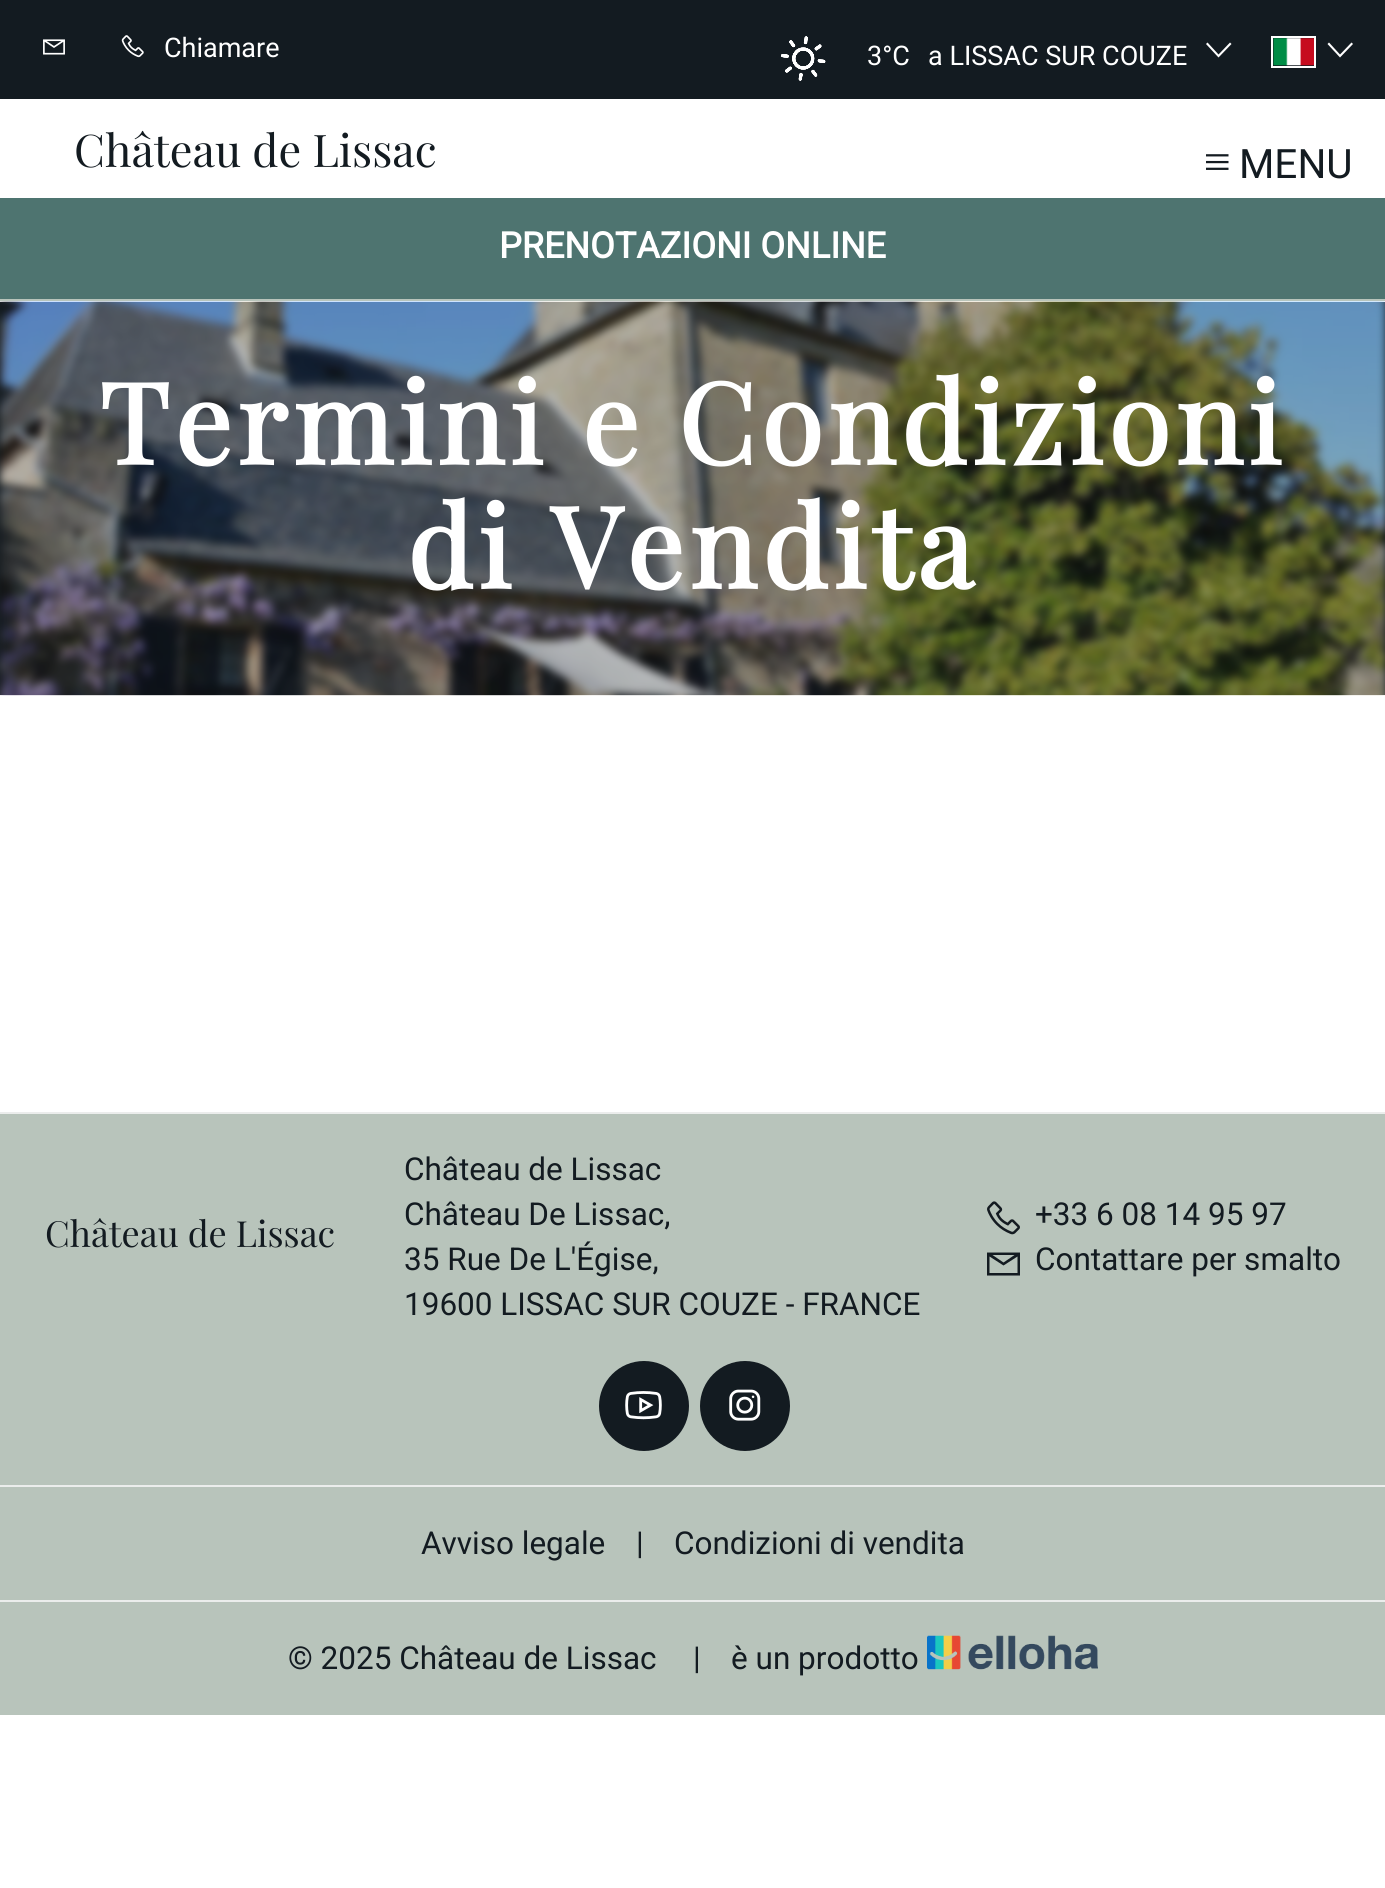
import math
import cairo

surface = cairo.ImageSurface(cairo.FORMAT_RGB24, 1385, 1888)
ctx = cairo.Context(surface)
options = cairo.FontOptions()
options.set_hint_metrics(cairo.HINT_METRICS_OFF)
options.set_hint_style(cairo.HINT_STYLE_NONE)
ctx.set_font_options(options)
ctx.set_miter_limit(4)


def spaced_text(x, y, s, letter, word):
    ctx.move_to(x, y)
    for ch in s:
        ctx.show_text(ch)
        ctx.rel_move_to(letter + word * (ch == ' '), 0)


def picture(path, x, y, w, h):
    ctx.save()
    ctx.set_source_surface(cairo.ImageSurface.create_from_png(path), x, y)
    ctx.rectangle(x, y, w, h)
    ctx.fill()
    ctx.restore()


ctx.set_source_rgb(1, 1, 1)
ctx.paint()
ctx.set_source_rgb(0.078, 0.106, 0.129)
ctx.rectangle(0, 0, 1385, 99)
ctx.fill()
picture("img1.png", 43, 39, 22, 16)
picture("img2.png", 121, 35, 23, 23)
ctx.select_font_face("Roboto")
ctx.set_font_size(27)
ctx.set_source_rgb(1, 1, 1)
ctx.move_to(164, 57)
ctx.show_text("Chiamare")
picture("img3.png", 781, 36, 45, 45)
ctx.move_to(867, 65)
ctx.show_text("3°C")
ctx.move_to(928, 65)
ctx.show_text("a LISSAC SUR COUZE")
ctx.new_path()
ctx.move_to(1230, 42.5)
ctx.line_to(1231.5, 44)
ctx.line_to(1218.5, 57.5)
ctx.line_to(1206, 44)
ctx.line_to(1207.5, 42.5)
ctx.line_to(1218.5, 54.5)
ctx.close_path()
ctx.fill()
ctx.rectangle(1272, 37, 43, 30)
ctx.stroke()
picture("img4.png", 1273, 38, 41, 28)
ctx.new_path()
ctx.move_to(1351.5, 42.5)
ctx.line_to(1353, 44)
ctx.line_to(1340, 57.5)
ctx.line_to(1327.5, 44)
ctx.line_to(1329, 42.5)
ctx.line_to(1340, 54.5)
ctx.close_path()
ctx.fill()
ctx.set_source_rgb(0.722, 0.769, 0.733)
ctx.rectangle(0, 299, 1385, 2)
ctx.fill()
ctx.select_font_face("Playfair Display")
ctx.set_font_size(45)
ctx.set_source_rgb(0.078, 0.106, 0.129)
ctx.move_to(74, 167)
ctx.show_text("Château de Lissac")
picture("img5.png", 1206, 154, 23, 16)
ctx.select_font_face("Roboto")
ctx.set_font_size(40.5)
ctx.move_to(1239, 178)
ctx.show_text("MENU")
ctx.set_source_rgb(0.306, 0.455, 0.439)
ctx.rectangle(0, 198, 1385, 101)
ctx.fill()
ctx.select_font_face("Roboto", cairo.FONT_SLANT_NORMAL, cairo.FONT_WEIGHT_BOLD)
ctx.set_font_size(36)
ctx.set_source_rgb(1, 1, 1)
ctx.move_to(499, 258)
ctx.show_text("PRENOTAZIONI ONLINE")
ctx.set_source_rgb(0.078, 0.106, 0.129)
ctx.rectangle(0, 302, 1385, 393)
ctx.fill()
picture("img6.png", 0, 301, 1385, 395)
ctx.select_font_face("Playfair Display", cairo.FONT_SLANT_NORMAL, cairo.FONT_WEIGHT_BOLD)
ctx.set_font_size(112.5)
ctx.set_source_rgb(1, 1, 1)
spaced_text(99, 465, "Termini e Condizioni", 5.6, 0)
spaced_text(407, 589, "di Vendita", 5.6, 0)
ctx.set_source_rgb(0.722, 0.769, 0.733)
ctx.rectangle(0, 1114, 1385, 371)
ctx.fill()
ctx.set_source_rgb(0.918, 0.929, 0.922)
ctx.rectangle(0, 1112, 1385, 2)
ctx.fill()
ctx.rectangle(0, 1485, 1385, 2)
ctx.fill()
ctx.select_font_face("Playfair Display")
ctx.set_font_size(36)
ctx.set_source_rgb(0.078, 0.106, 0.129)
ctx.move_to(45, 1247)
ctx.show_text("Château de Lissac")
ctx.select_font_face("Roboto")
ctx.set_font_size(31.5)
ctx.move_to(404, 1180)
ctx.show_text("Château de Lissac")
ctx.move_to(404, 1225)
ctx.show_text("Château De Lissac,")
ctx.move_to(404, 1270)
ctx.show_text("35 Rue De L'Égise,")
ctx.move_to(404, 1315)
ctx.show_text("19600 LISSAC SUR COUZE - FRANCE")
picture("img7.png", 987, 1201, 33, 34)
ctx.move_to(1035, 1225)
ctx.show_text("+33 6 08 14 95 97")
ctx.new_path()
ctx.move_to(987, 1252.5)
ctx.line_to(987, 1275.5)
ctx.line_to(1020, 1275.5)
ctx.line_to(1020, 1252.5)
ctx.close_path()
ctx.move_to(992.5, 1255)
ctx.line_to(1014.5, 1255)
ctx.line_to(1003.5, 1262.5)
ctx.close_path()
ctx.move_to(989.5, 1256.5)
ctx.line_to(1003.5, 1265.5)
ctx.line_to(1017.5, 1256.5)
ctx.line_to(1017.5, 1273)
ctx.line_to(989.5, 1273)
ctx.close_path()
ctx.fill()
ctx.move_to(1035, 1270)
ctx.show_text("Contattare per smalto")
ctx.new_path()
ctx.arc(644, 1406, 45, 0, 2 * math.pi)
ctx.fill()
picture("img8.png", 625, 1391, 37, 29)
ctx.arc(745, 1406, 45, 0, 2 * math.pi)
ctx.fill()
picture("img9.png", 729, 1389, 32, 32)
ctx.set_source_rgb(0.722, 0.769, 0.733)
ctx.rectangle(0, 1487, 1385, 113)
ctx.fill()
ctx.set_source_rgb(0.918, 0.929, 0.922)
ctx.rectangle(0, 1600, 1385, 2)
ctx.fill()
ctx.set_source_rgb(0.078, 0.106, 0.129)
ctx.move_to(421, 1554)
ctx.show_text("Avviso legale")
ctx.move_to(636, 1554)
ctx.show_text("|")
ctx.move_to(674, 1554)
ctx.show_text("Condizioni di vendita")
ctx.set_source_rgb(0.722, 0.769, 0.733)
ctx.rectangle(0, 1602, 1385, 113)
ctx.fill()
ctx.set_source_rgb(0.078, 0.106, 0.129)
ctx.move_to(288, 1669)
ctx.show_text("© 2025 Château de Lissac")
ctx.move_to(693, 1669)
ctx.show_text("|")
ctx.move_to(731, 1669)
ctx.show_text("è un prodotto")
picture("img10.png", 927, 1635, 171, 35)
surface.write_to_png("page.png")
